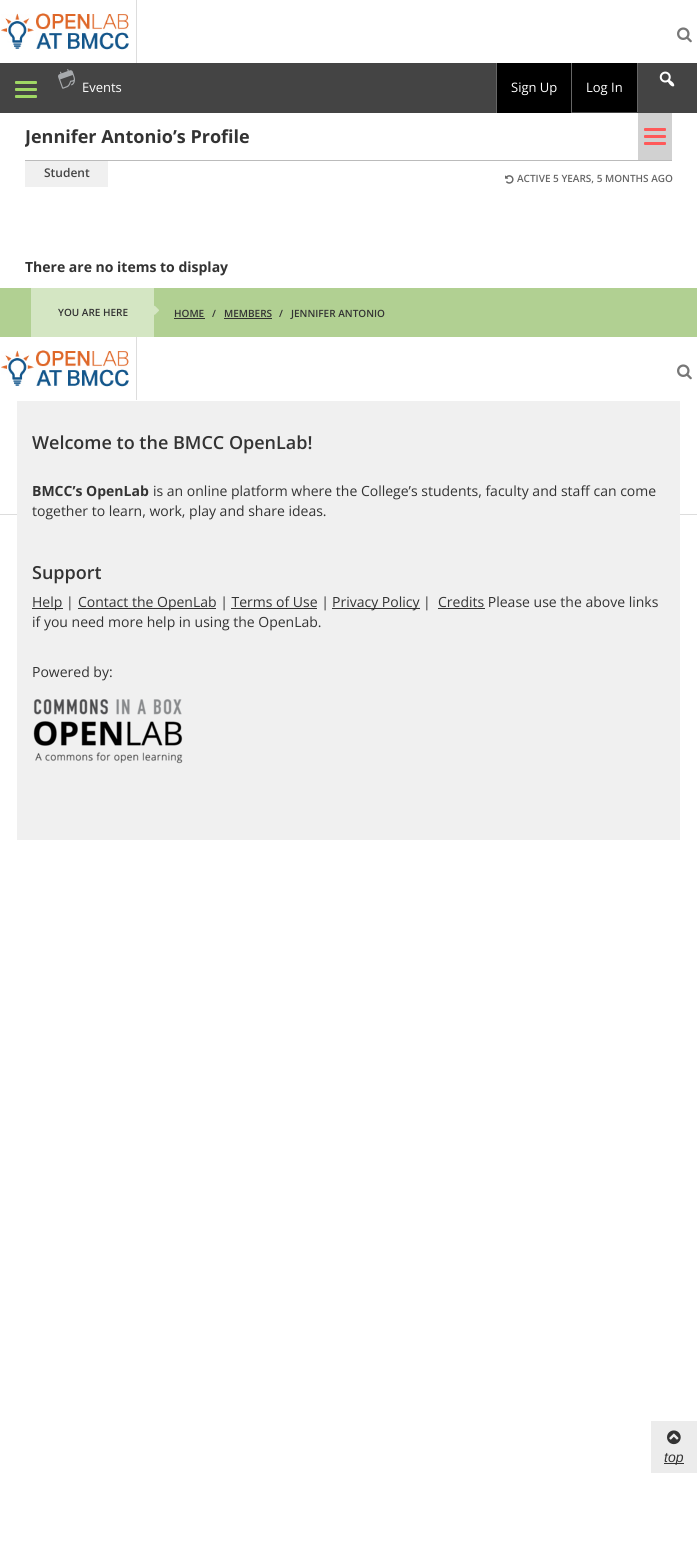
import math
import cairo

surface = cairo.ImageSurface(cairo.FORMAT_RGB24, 697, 1551)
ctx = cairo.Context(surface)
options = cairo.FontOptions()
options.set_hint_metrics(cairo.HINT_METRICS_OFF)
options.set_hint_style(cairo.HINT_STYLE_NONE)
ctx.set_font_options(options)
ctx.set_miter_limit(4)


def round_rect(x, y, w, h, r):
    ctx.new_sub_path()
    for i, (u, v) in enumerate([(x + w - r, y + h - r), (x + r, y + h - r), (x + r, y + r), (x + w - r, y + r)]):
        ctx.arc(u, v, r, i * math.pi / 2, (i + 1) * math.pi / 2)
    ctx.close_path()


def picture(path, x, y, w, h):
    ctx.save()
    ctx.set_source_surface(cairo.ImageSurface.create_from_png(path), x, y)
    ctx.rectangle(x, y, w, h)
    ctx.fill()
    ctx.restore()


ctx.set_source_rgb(1, 1, 1)
ctx.paint()
ctx.set_source_rgb(0.267, 0.267, 0.267)
ctx.rectangle(0, 63, 697, 50)
ctx.fill()
ctx.set_source_rgb(0.624, 0.843, 0.392)
round_rect(15, 81, 22, 3, 1)
ctx.fill()
round_rect(15, 88, 22, 3, 1)
ctx.fill()
round_rect(15, 95, 22, 3, 1)
ctx.fill()
picture("img1.png", 58, 69, 17, 20)
ctx.select_font_face("Open Sans")
ctx.set_font_size(13)
ctx.set_source_rgb(1, 1, 1)
ctx.move_to(82, 92)
ctx.show_text("Events")
picture("img2.png", 659, 71, 16, 16)
ctx.set_source_rgb(0, 0, 0)
ctx.rectangle(497, 63, 74, 50)
ctx.fill()
ctx.set_source_rgb(0.4, 0.4, 0.4)
ctx.rectangle(571, 63, 1, 50)
ctx.fill()
ctx.rectangle(496, 63, 1, 50)
ctx.fill()
ctx.set_source_rgb(1, 1, 1)
ctx.move_to(511, 92)
ctx.show_text("Sign Up")
ctx.set_source_rgb(0, 0, 0)
ctx.rectangle(572, 63, 65, 49)
ctx.fill()
ctx.set_source_rgb(0.4, 0.4, 0.4)
ctx.rectangle(637, 63, 1, 49)
ctx.fill()
ctx.set_source_rgb(1, 1, 1)
ctx.move_to(586, 92)
ctx.show_text("Log In")
ctx.set_source_rgb(0.867, 0.867, 0.867)
ctx.rectangle(136, 0, 1, 63)
ctx.fill()
picture("img3.png", 1, 13, 128, 37)
picture("img4.png", 677, 27, 15, 16)
ctx.set_source_rgb(0.733, 0.733, 0.733)
ctx.rectangle(25, 160, 647, 1)
ctx.fill()
ctx.save()
ctx.rectangle(25, 105, 647, 55)
ctx.clip()
ctx.select_font_face("Open Sans", cairo.FONT_SLANT_NORMAL, cairo.FONT_WEIGHT_BOLD)
ctx.set_font_size(18)
ctx.set_source_rgb(0.2, 0.2, 0.2)
ctx.move_to(25, 143)
ctx.show_text("Jennifer Antonio’s Profile")
ctx.restore()
ctx.set_source_rgb(0.82, 0.82, 0.82)
ctx.rectangle(638, 113, 34, 47)
ctx.fill()
ctx.set_source_rgb(1, 0.349, 0.349)
round_rect(644, 128, 22, 3, 1)
ctx.fill()
round_rect(644, 135, 22, 3, 1)
ctx.fill()
round_rect(644, 142, 22, 3, 1)
ctx.fill()
ctx.set_source_rgb(0.941, 0.941, 0.941)
ctx.rectangle(25, 161, 83, 26)
ctx.fill()
ctx.select_font_face("Open Sans SemiBold")
ctx.set_font_size(12)
ctx.set_source_rgb(0.267, 0.267, 0.267)
ctx.move_to(44, 177)
ctx.show_text("Student")
picture("img5.png", 505, 175, 9, 9)
ctx.set_font_size(10)
ctx.set_source_rgb(0.4, 0.4, 0.4)
ctx.move_to(517, 182)
ctx.show_text("ACTIVE 5 YEARS, 5 MONTHS AGO")
ctx.select_font_face("Open Sans", cairo.FONT_SLANT_NORMAL, cairo.FONT_WEIGHT_BOLD)
ctx.set_font_size(14)
ctx.set_source_rgb(0.2, 0.2, 0.2)
ctx.move_to(25, 272)
ctx.show_text("There are no items to display")
ctx.set_source_rgb(0.694, 0.816, 0.573)
ctx.rectangle(0, 288, 697, 49)
ctx.fill()
ctx.set_source_rgb(0.831, 0.902, 0.765)
ctx.rectangle(31, 288, 123, 49)
ctx.fill()
ctx.select_font_face("Open Sans SemiBold")
ctx.set_font_size(10)
ctx.set_source_rgb(0.2, 0.2, 0.2)
ctx.move_to(58, 316)
ctx.show_text("YOU ARE HERE")
picture("img6.png", 154, 305, 5, 10)
ctx.move_to(174, 317)
ctx.show_text("HOME")
ctx.rectangle(174, 318, 31, 1)
ctx.fill()
ctx.move_to(212, 317)
ctx.show_text("/")
ctx.move_to(224, 317)
ctx.show_text("MEMBERS")
ctx.rectangle(224, 318, 48, 1)
ctx.fill()
ctx.move_to(279, 317)
ctx.show_text("/")
ctx.move_to(291, 317)
ctx.show_text("JENNIFER ANTONIO")
ctx.set_source_rgb(0.867, 0.867, 0.867)
ctx.rectangle(136, 337, 1, 63)
ctx.fill()
picture("img7.png", 1, 350, 128, 37)
picture("img4.png", 677, 364, 15, 16)
ctx.rectangle(0, 514, 697, 1)
ctx.fill()
ctx.set_source_rgb(0.941, 0.941, 0.941)
ctx.rectangle(17, 401, 663, 439)
ctx.fill()
ctx.set_font_size(18)
ctx.set_source_rgb(0.2, 0.2, 0.2)
ctx.move_to(32, 449)
ctx.show_text("Welcome to the BMCC OpenLab!")
ctx.select_font_face("Open Sans", cairo.FONT_SLANT_NORMAL, cairo.FONT_WEIGHT_BOLD)
ctx.set_font_size(14)
ctx.move_to(32, 496)
ctx.show_text("BMCC’s OpenLab")
ctx.select_font_face("Open Sans")
ctx.move_to(153, 496)
ctx.show_text("is an online platform where the College’s students, faculty and staff can come")
ctx.move_to(32, 516)
ctx.show_text("together to learn, work, play and share ideas.")
ctx.select_font_face("Open Sans SemiBold")
ctx.set_font_size(18)
ctx.move_to(32, 579)
ctx.show_text("Support")
ctx.rectangle(32, 608, 31, 1)
ctx.fill()
ctx.select_font_face("Open Sans")
ctx.set_font_size(14)
ctx.move_to(32, 607)
ctx.show_text("Help |")
ctx.rectangle(78, 608, 138, 1)
ctx.fill()
ctx.move_to(78, 607)
ctx.show_text("Contact the OpenLab | Terms of Use |")
ctx.rectangle(332, 608, 88, 1)
ctx.fill()
ctx.move_to(332, 607)
ctx.show_text("Privacy Policy |")
ctx.move_to(438, 607)
ctx.show_text("Credits Please use the above links")
ctx.rectangle(438, 608, 47, 1)
ctx.fill()
ctx.rectangle(231, 608, 86, 1)
ctx.fill()
ctx.move_to(32, 627)
ctx.show_text("if you need more help in using the OpenLab.")
ctx.move_to(32, 677)
ctx.show_text("Powered by:")
picture("img8.png", 33, 699, 150, 65)
ctx.set_source_rgb(0.925, 0.925, 0.925)
ctx.rectangle(651, 1421, 46, 52)
ctx.fill()
picture("img9.png", 667, 1430, 14, 15)
ctx.set_source_rgb(0.2, 0.2, 0.2)
ctx.rectangle(664, 1463, 20, 1)
ctx.fill()
ctx.select_font_face("Liberation Sans", cairo.FONT_SLANT_ITALIC)
ctx.move_to(664, 1462)
ctx.show_text("top")
surface.write_to_png("page.png")
